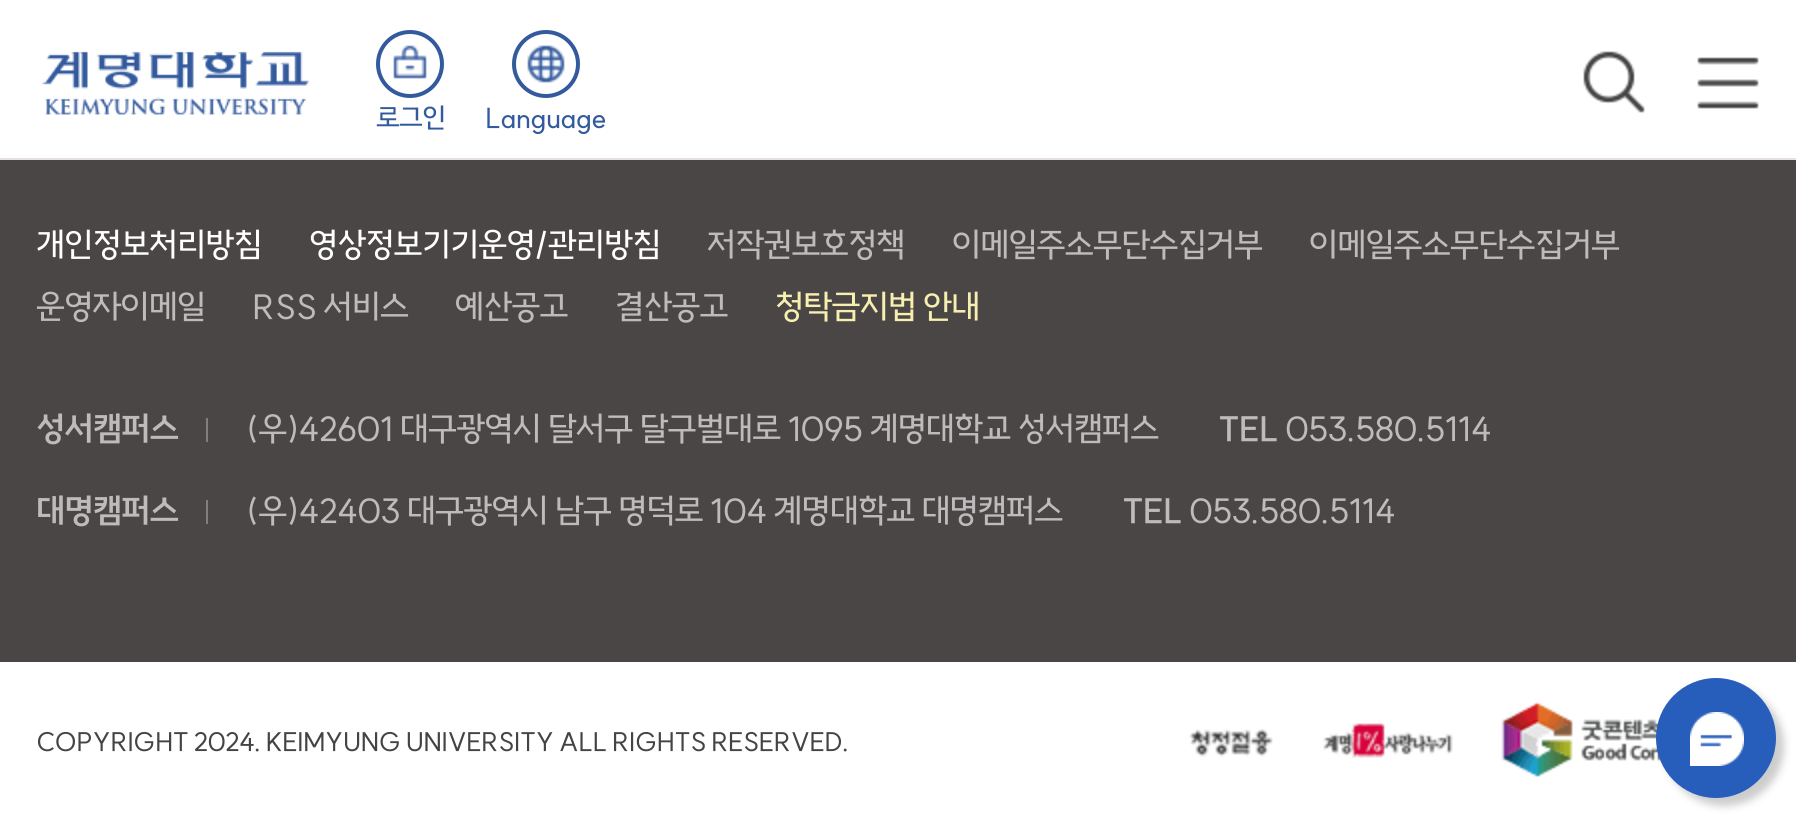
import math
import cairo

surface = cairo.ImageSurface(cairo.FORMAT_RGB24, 1796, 817)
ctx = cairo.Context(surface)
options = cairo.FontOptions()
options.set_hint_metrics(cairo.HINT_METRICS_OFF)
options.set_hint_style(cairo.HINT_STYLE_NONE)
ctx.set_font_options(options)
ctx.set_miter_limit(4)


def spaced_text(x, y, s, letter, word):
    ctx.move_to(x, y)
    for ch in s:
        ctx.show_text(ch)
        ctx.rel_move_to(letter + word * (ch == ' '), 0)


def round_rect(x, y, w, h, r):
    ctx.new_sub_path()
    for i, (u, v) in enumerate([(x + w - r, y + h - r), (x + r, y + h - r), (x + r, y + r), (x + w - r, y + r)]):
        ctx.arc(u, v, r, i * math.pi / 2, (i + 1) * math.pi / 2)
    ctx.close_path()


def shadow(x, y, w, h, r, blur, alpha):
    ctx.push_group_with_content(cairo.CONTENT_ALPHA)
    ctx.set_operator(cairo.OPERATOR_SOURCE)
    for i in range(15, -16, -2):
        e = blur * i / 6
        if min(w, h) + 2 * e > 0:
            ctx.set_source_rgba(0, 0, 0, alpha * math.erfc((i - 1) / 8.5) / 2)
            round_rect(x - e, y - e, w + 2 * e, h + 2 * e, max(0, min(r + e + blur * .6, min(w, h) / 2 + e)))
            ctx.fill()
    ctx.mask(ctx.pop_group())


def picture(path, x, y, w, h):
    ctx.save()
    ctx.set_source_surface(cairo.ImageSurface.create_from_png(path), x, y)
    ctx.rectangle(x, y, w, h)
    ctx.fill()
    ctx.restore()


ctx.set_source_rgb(0.294, 0.275, 0.275)
ctx.paint()
ctx.set_source_rgb(1, 1, 1)
ctx.rectangle(0, 0, 1796, 158)
ctx.fill()
ctx.set_source_rgb(0.902, 0.878, 0.878)
ctx.rectangle(0, 158, 1796, 2)
ctx.fill()
picture("img1.png", 41, 51, 268, 64)
picture("img2.png", 1583, 51, 62, 62)
picture("img3.png", 1697, 57, 62, 52)
picture("img4.png", 393, 45, 34, 34)
ctx.arc(410, 64, 32, 0, 2 * math.pi)
ctx.set_source_rgb(0.2, 0.353, 0.616)
ctx.set_line_width(4)
ctx.stroke()
ctx.select_font_face("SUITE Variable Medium")
ctx.set_font_size(28)
spaced_text(376, 128, "로그인", -0.8, 0)
picture("img5.png", 527, 45, 38, 38)
ctx.arc(546, 64, 32, 0, 2 * math.pi)
ctx.stroke()
spaced_text(485, 128, "Language", -0.8, 0)
ctx.set_font_size(34)
ctx.set_source_rgb(1, 1, 1)
spaced_text(36, 257, "개인정보처리방침", -0.8, 0)
spaced_text(309, 257, "영상정보기기운영/관리방침", -0.8, 0)
ctx.set_source_rgb(0.741, 0.733, 0.733)
spaced_text(707, 257, "저작권보호정책", -0.8, 0)
spaced_text(952, 257, "이메일주소무단수집거부", -0.8, 0)
spaced_text(1309, 257, "이메일주소무단수집거부", -0.8, 0)
spaced_text(36, 319, "운영자이메일", -0.8, 0)
spaced_text(252, 319, "RSS 서비스", -0.8, 0)
spaced_text(455, 319, "예산공고", -0.8, 0)
spaced_text(615, 319, "결산공고", -0.8, 0)
ctx.set_source_rgb(0.961, 0.937, 0.69)
spaced_text(775, 319, "청탁금지법 안내", -0.8, 0)
ctx.select_font_face("SUITE Variable", cairo.FONT_SLANT_NORMAL, cairo.FONT_WEIGHT_BOLD)
ctx.set_source_rgb(0.741, 0.733, 0.733)
spaced_text(36, 441, "성서캠퍼스", -0.8, 0)
ctx.set_source_rgb(0.506, 0.494, 0.494)
ctx.rectangle(206, 418, 2, 24)
ctx.fill()
ctx.select_font_face("SUITE Variable Medium")
ctx.set_source_rgb(0.741, 0.733, 0.733)
spaced_text(246, 441, "(우)42601 대구광역시 달서구 달구벌대로 1095 계명대학교 성서캠퍼스", -0.8, 0)
ctx.select_font_face("SUITE Variable", cairo.FONT_SLANT_NORMAL, cairo.FONT_WEIGHT_BOLD)
spaced_text(1218, 441, "TEL", -0.8, 0)
ctx.select_font_face("SUITE Variable Medium")
spaced_text(1285, 441, "053.580.5114", -0.8, 0)
ctx.select_font_face("SUITE Variable", cairo.FONT_SLANT_NORMAL, cairo.FONT_WEIGHT_BOLD)
spaced_text(36, 523, "대명캠퍼스", -0.8, 0)
ctx.set_source_rgb(0.506, 0.494, 0.494)
ctx.rectangle(206, 500, 2, 24)
ctx.fill()
ctx.select_font_face("SUITE Variable Medium")
ctx.set_source_rgb(0.741, 0.733, 0.733)
spaced_text(246, 523, "(우)42403 대구광역시 남구 명덕로 104 계명대학교 대명캠퍼스", -0.8, 0)
ctx.select_font_face("SUITE Variable", cairo.FONT_SLANT_NORMAL, cairo.FONT_WEIGHT_BOLD)
spaced_text(1122, 523, "TEL", -0.8, 0)
ctx.select_font_face("SUITE Variable Medium")
spaced_text(1189, 523, "053.580.5114", -0.8, 0)
ctx.set_source_rgb(1, 1, 1)
ctx.rectangle(0, 662, 1796, 155)
ctx.fill()
ctx.set_font_size(26)
ctx.set_source_rgb(0.267, 0.267, 0.267)
spaced_text(36, 751, "COPYRIGHT 2024. KEIMYUNG UNIVERSITY ALL RIGHTS RESERVED.", -0.8, 0)
picture("img6.png", 1189, 729, 84, 28)
picture("img7.png", 1323, 723, 130, 35)
picture("img8.png", 1501, 702, 170, 75)
ctx.set_source_rgb(0, 0, 0)
shadow(1664, 686, 120, 120, 60, 4, 0.2)
ctx.set_source_rgb(0.157, 0.369, 0.733)
ctx.arc(1716, 738, 60, 0, 2 * math.pi)
ctx.fill()
picture("img9.png", 1690, 712, 54, 54)
surface.write_to_png("page.png")
